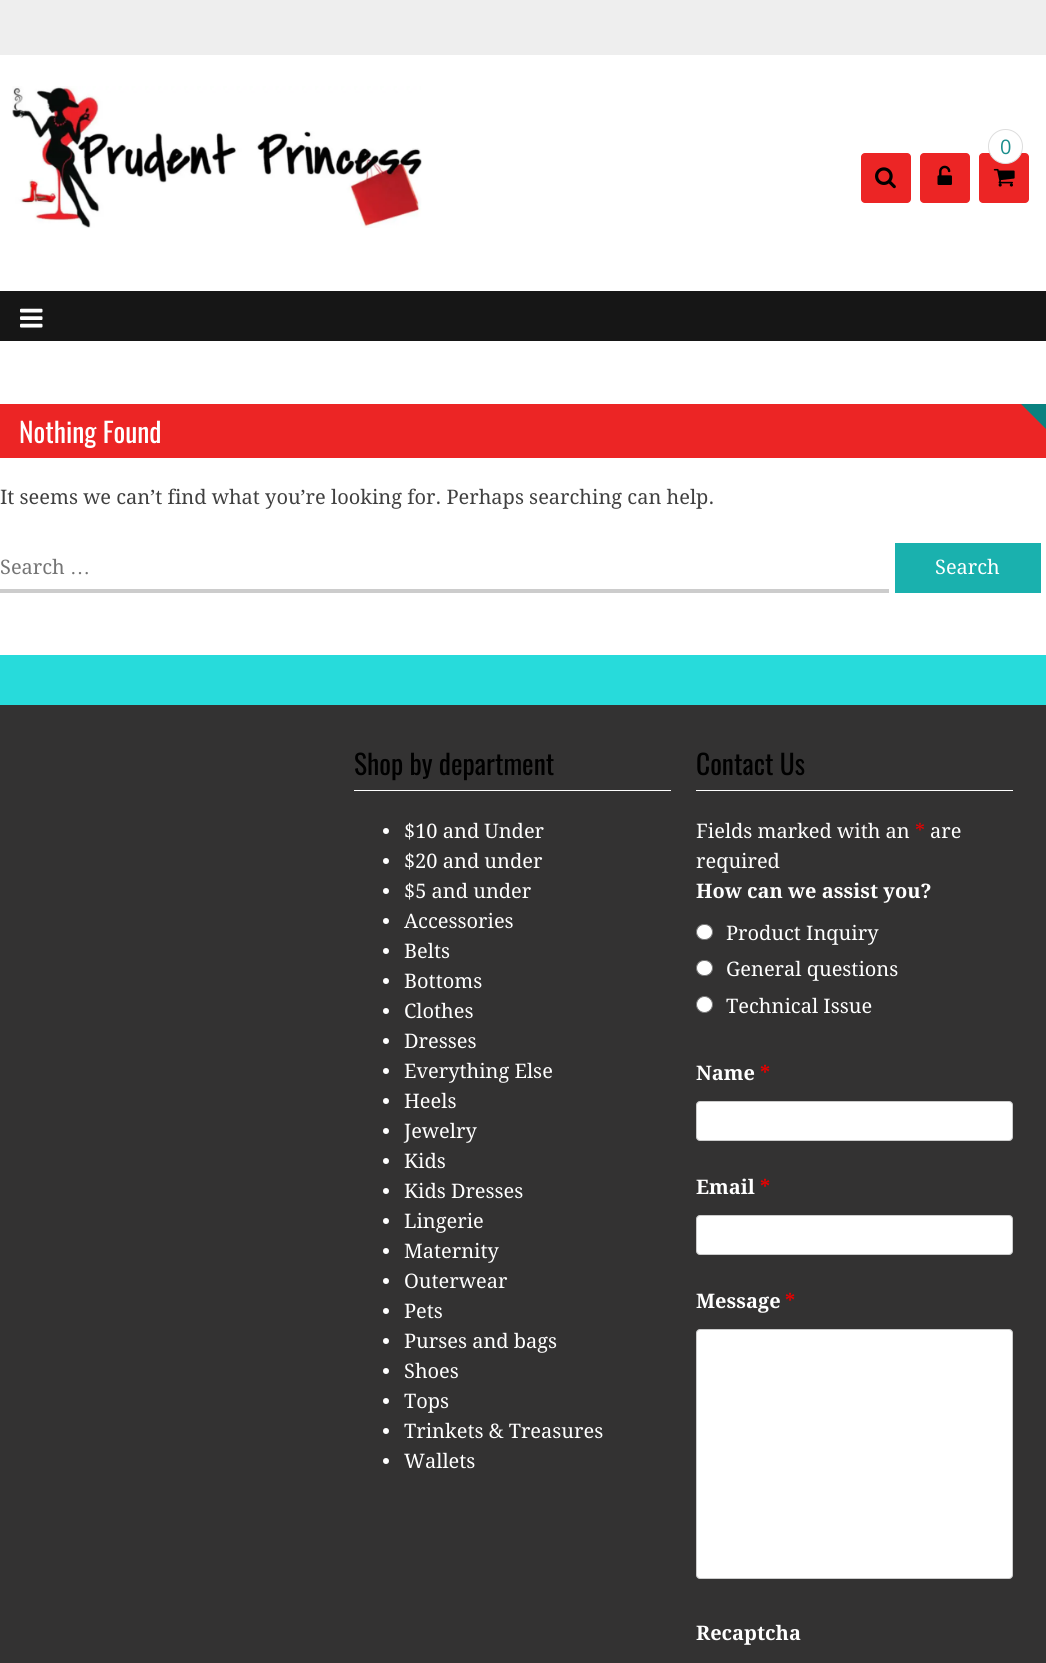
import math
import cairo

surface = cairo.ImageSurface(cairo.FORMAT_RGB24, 1046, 1663)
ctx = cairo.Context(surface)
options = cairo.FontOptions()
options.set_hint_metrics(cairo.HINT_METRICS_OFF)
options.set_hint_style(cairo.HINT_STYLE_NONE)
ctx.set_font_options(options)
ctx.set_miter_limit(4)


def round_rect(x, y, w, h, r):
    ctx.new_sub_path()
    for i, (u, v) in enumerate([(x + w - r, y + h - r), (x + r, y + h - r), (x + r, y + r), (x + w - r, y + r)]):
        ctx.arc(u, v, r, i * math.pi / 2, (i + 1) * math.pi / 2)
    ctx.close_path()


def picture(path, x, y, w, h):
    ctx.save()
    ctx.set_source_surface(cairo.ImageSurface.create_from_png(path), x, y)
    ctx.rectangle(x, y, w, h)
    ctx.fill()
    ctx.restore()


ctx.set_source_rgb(1, 1, 1)
ctx.paint()
ctx.set_source_rgb(0.933, 0.933, 0.933)
ctx.rectangle(0, 0, 1046, 55)
ctx.fill()
picture("img1.png", 12, 86, 410, 142)
ctx.set_source_rgb(0.925, 0.145, 0.145)
round_rect(979, 153, 50, 50, 4)
ctx.fill()
ctx.set_source_rgb(1, 1, 1)
ctx.arc(1005.5, 146.5, 17, 0, 2 * math.pi)
ctx.fill_preserve()
ctx.set_source_rgb(0.867, 0.867, 0.867)
ctx.set_line_width(1)
ctx.stroke()
ctx.select_font_face("Open Sans")
ctx.set_font_size(20)
ctx.set_source_rgb(0.106, 0.557, 0.553)
ctx.move_to(1000, 154)
ctx.show_text("0")
picture("img2.png", 993, 168, 22, 19)
ctx.set_source_rgb(0.925, 0.145, 0.145)
round_rect(861, 153, 50, 50, 4)
ctx.fill()
picture("img3.png", 875, 167, 21, 22)
round_rect(920, 153, 50, 50, 4)
ctx.fill()
picture("img4.png", 937, 165, 15, 20)
ctx.set_source_rgb(0.086, 0.086, 0.086)
ctx.rectangle(0, 291, 1046, 50)
ctx.fill()
picture("img5.png", 20, 308, 23, 20)
ctx.set_source_rgb(0.925, 0.145, 0.145)
ctx.rectangle(0, 404, 1046, 54)
ctx.fill()
ctx.set_source_rgb(0.039, 0.51, 0.502)
ctx.new_path()
ctx.move_to(1021, 404)
ctx.line_to(1046, 404)
ctx.line_to(1046, 429)
ctx.close_path()
ctx.fill()
ctx.select_font_face("Oswald")
ctx.set_font_size(27.5)
ctx.set_source_rgb(1, 1, 1)
ctx.move_to(19, 443)
ctx.show_text("Nothing Found")
ctx.select_font_face("Droid Serif")
ctx.set_font_size(20)
ctx.set_source_rgb(0.251, 0.251, 0.251)
ctx.move_to(0, 504)
ctx.show_text("It seems we can’t find what you’re looking for. Perhaps searching can help.")
ctx.set_source_rgb(0.8, 0.8, 0.8)
ctx.rectangle(0, 589, 889, 4)
ctx.fill()
ctx.set_source_rgb(0.459, 0.459, 0.459)
ctx.move_to(0, 574)
ctx.show_text("Search")
ctx.select_font_face("Liberation Serif")
ctx.move_to(70, 574)
ctx.show_text("…")
ctx.set_source_rgb(0.102, 0.694, 0.682)
ctx.rectangle(895, 543, 146, 50)
ctx.fill()
ctx.select_font_face("Droid Serif")
ctx.set_source_rgb(1, 1, 1)
ctx.move_to(935, 574)
ctx.show_text("Search")
ctx.set_source_rgb(0.153, 0.859, 0.859)
ctx.rectangle(0, 655, 1046, 50)
ctx.fill()
ctx.set_source_rgb(0.2, 0.196, 0.196)
ctx.rectangle(0, 705, 1046, 958)
ctx.fill()
ctx.set_source_rgb(1, 1, 1)
ctx.rectangle(354, 790, 317, 1)
ctx.fill()
ctx.select_font_face("Oswald")
ctx.set_font_size(27.5)
ctx.set_source_rgb(0, 0, 0)
ctx.move_to(354, 775)
ctx.show_text("Shop by department")
ctx.set_source_rgb(1, 1, 1)
ctx.new_path()
ctx.arc(386, 831, 3, 0, 2 * math.pi)
ctx.fill()
ctx.select_font_face("Droid Serif")
ctx.set_font_size(20)
ctx.move_to(404, 838)
ctx.show_text("$10 and Under")
ctx.new_path()
ctx.arc(386, 861, 3, 0, 2 * math.pi)
ctx.fill()
ctx.move_to(404, 868)
ctx.show_text("$20 and under")
ctx.new_path()
ctx.arc(386, 891, 3, 0, 2 * math.pi)
ctx.fill()
ctx.move_to(404, 898)
ctx.show_text("$5 and under")
ctx.new_path()
ctx.arc(386, 921, 3, 0, 2 * math.pi)
ctx.fill()
ctx.move_to(404, 928)
ctx.show_text("Accessories")
ctx.new_path()
ctx.arc(386, 951, 3, 0, 2 * math.pi)
ctx.fill()
ctx.move_to(404, 958)
ctx.show_text("Belts")
ctx.new_path()
ctx.arc(386, 981, 3, 0, 2 * math.pi)
ctx.fill()
ctx.move_to(404, 988)
ctx.show_text("Bottoms")
ctx.new_path()
ctx.arc(386, 1011, 3, 0, 2 * math.pi)
ctx.fill()
ctx.move_to(404, 1018)
ctx.show_text("Clothes")
ctx.new_path()
ctx.arc(386, 1041, 3, 0, 2 * math.pi)
ctx.fill()
ctx.move_to(404, 1048)
ctx.show_text("Dresses")
ctx.new_path()
ctx.arc(386, 1071, 3, 0, 2 * math.pi)
ctx.fill()
ctx.move_to(404, 1078)
ctx.show_text("Everything Else")
ctx.new_path()
ctx.arc(386, 1101, 3, 0, 2 * math.pi)
ctx.fill()
ctx.move_to(404, 1108)
ctx.show_text("Heels")
ctx.new_path()
ctx.arc(386, 1131, 3, 0, 2 * math.pi)
ctx.fill()
ctx.move_to(404, 1138)
ctx.show_text("Jewelry")
ctx.new_path()
ctx.arc(386, 1161, 3, 0, 2 * math.pi)
ctx.fill()
ctx.move_to(404, 1168)
ctx.show_text("Kids")
ctx.new_path()
ctx.arc(386, 1191, 3, 0, 2 * math.pi)
ctx.fill()
ctx.move_to(404, 1198)
ctx.show_text("Kids Dresses")
ctx.new_path()
ctx.arc(386, 1221, 3, 0, 2 * math.pi)
ctx.fill()
ctx.move_to(404, 1228)
ctx.show_text("Lingerie")
ctx.new_path()
ctx.arc(386, 1251, 3, 0, 2 * math.pi)
ctx.fill()
ctx.move_to(404, 1258)
ctx.show_text("Maternity")
ctx.new_path()
ctx.arc(386, 1281, 3, 0, 2 * math.pi)
ctx.fill()
ctx.move_to(404, 1288)
ctx.show_text("Outerwear")
ctx.new_path()
ctx.arc(386, 1311, 3, 0, 2 * math.pi)
ctx.fill()
ctx.move_to(404, 1318)
ctx.show_text("Pets")
ctx.new_path()
ctx.arc(386, 1341, 3, 0, 2 * math.pi)
ctx.fill()
ctx.move_to(404, 1348)
ctx.show_text("Purses and bags")
ctx.new_path()
ctx.arc(386, 1371, 3, 0, 2 * math.pi)
ctx.fill()
ctx.move_to(404, 1378)
ctx.show_text("Shoes")
ctx.new_path()
ctx.arc(386, 1401, 3, 0, 2 * math.pi)
ctx.fill()
ctx.move_to(404, 1408)
ctx.show_text("Tops")
ctx.new_path()
ctx.arc(386, 1431, 3, 0, 2 * math.pi)
ctx.fill()
ctx.move_to(404, 1438)
ctx.show_text("Trinkets & Treasures")
ctx.new_path()
ctx.arc(386, 1461, 3, 0, 2 * math.pi)
ctx.fill()
ctx.move_to(404, 1468)
ctx.show_text("Wallets")
ctx.rectangle(696, 790, 317, 1)
ctx.fill()
ctx.select_font_face("Oswald")
ctx.set_font_size(27.5)
ctx.set_source_rgb(0, 0, 0)
ctx.move_to(696, 775)
ctx.show_text("Contact Us")
ctx.select_font_face("Droid Serif")
ctx.set_font_size(20)
ctx.set_source_rgb(1, 1, 1)
ctx.move_to(696, 838)
ctx.show_text("Fields marked with an")
ctx.set_source_rgb(0.91, 0, 0)
ctx.move_to(915, 838)
ctx.show_text("*")
ctx.set_source_rgb(1, 1, 1)
ctx.move_to(930, 838)
ctx.show_text("are")
ctx.move_to(696, 868)
ctx.show_text("required")
ctx.select_font_face("Droid Serif", cairo.FONT_SLANT_NORMAL, cairo.FONT_WEIGHT_BOLD)
ctx.move_to(696, 898)
ctx.show_text("How can we assist you?")
round_rect(696.5, 924.5, 16, 15, 7.5)
ctx.fill_preserve()
ctx.set_source_rgb(0.463, 0.463, 0.463)
ctx.stroke()
ctx.select_font_face("Droid Serif")
ctx.set_source_rgb(1, 1, 1)
ctx.move_to(726, 940)
ctx.show_text("Product Inquiry")
round_rect(696.5, 960.5, 16, 15, 7.5)
ctx.fill_preserve()
ctx.set_source_rgb(0.463, 0.463, 0.463)
ctx.stroke()
ctx.set_source_rgb(1, 1, 1)
ctx.move_to(726, 976)
ctx.show_text("General questions")
ctx.new_path()
ctx.arc(704.5, 1004.5, 8, 0, 2 * math.pi)
ctx.fill_preserve()
ctx.set_source_rgb(0.463, 0.463, 0.463)
ctx.stroke()
ctx.set_source_rgb(1, 1, 1)
ctx.move_to(726, 1013)
ctx.show_text("Technical Issue")
ctx.select_font_face("Droid Serif", cairo.FONT_SLANT_NORMAL, cairo.FONT_WEIGHT_BOLD)
ctx.move_to(696, 1080)
ctx.show_text("Name")
ctx.set_source_rgb(0.91, 0, 0)
ctx.move_to(760, 1080)
ctx.show_text("*")
ctx.set_source_rgb(1, 1, 1)
round_rect(696.5, 1101.5, 316, 39, 3.5)
ctx.fill_preserve()
ctx.set_source_rgb(0.8, 0.8, 0.8)
ctx.stroke()
ctx.set_source_rgb(1, 1, 1)
ctx.move_to(696, 1194)
ctx.show_text("Email")
ctx.set_source_rgb(0.91, 0, 0)
ctx.move_to(760, 1194)
ctx.show_text("*")
ctx.set_source_rgb(1, 1, 1)
round_rect(696.5, 1215.5, 316, 39, 3.5)
ctx.fill_preserve()
ctx.set_source_rgb(0.8, 0.8, 0.8)
ctx.stroke()
ctx.set_source_rgb(1, 1, 1)
ctx.move_to(696, 1308)
ctx.show_text("Message")
ctx.set_source_rgb(0.91, 0, 0)
ctx.move_to(785, 1308)
ctx.show_text("*")
ctx.set_source_rgb(1, 1, 1)
round_rect(696.5, 1329.5, 316, 249, 3.5)
ctx.fill_preserve()
ctx.set_source_rgb(0.8, 0.8, 0.8)
ctx.stroke()
ctx.set_source_rgb(1, 1, 1)
ctx.move_to(696, 1640)
ctx.show_text("Recaptcha")
surface.write_to_png("page.png")
